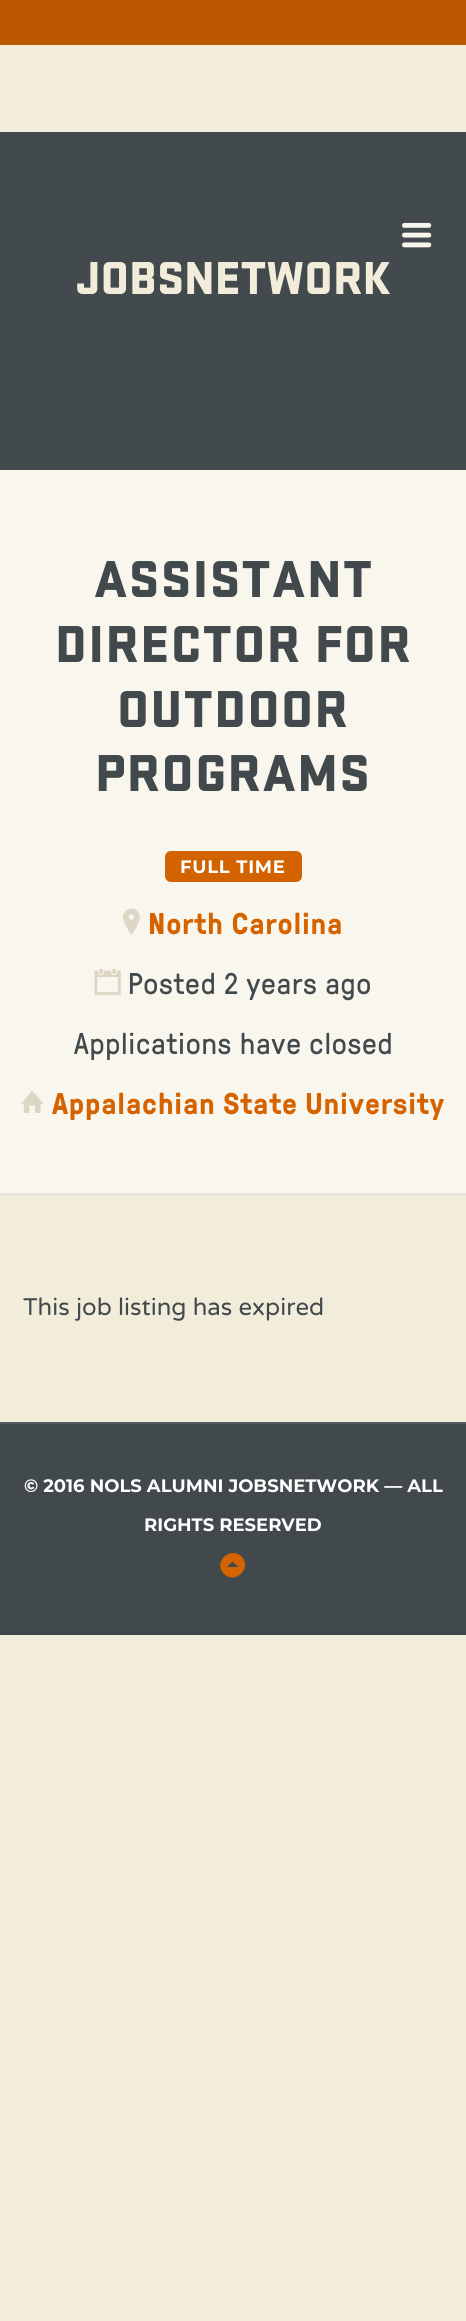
import math
import cairo

surface = cairo.ImageSurface(cairo.FORMAT_RGB24, 466, 2321)
ctx = cairo.Context(surface)
options = cairo.FontOptions()
options.set_hint_metrics(cairo.HINT_METRICS_OFF)
options.set_hint_style(cairo.HINT_STYLE_NONE)
ctx.set_font_options(options)
ctx.set_miter_limit(4)


def spaced_text(x, y, s, letter, word):
    ctx.move_to(x, y)
    for ch in s:
        ctx.show_text(ch)
        ctx.rel_move_to(letter + word * (ch == ' '), 0)


def round_rect(x, y, w, h, r):
    ctx.new_sub_path()
    for i, (u, v) in enumerate([(x + w - r, y + h - r), (x + r, y + h - r), (x + r, y + r), (x + w - r, y + r)]):
        ctx.arc(u, v, r, i * math.pi / 2, (i + 1) * math.pi / 2)
    ctx.close_path()


def picture(path, x, y, w, h):
    ctx.save()
    ctx.set_source_surface(cairo.ImageSurface.create_from_png(path), x, y)
    ctx.rectangle(x, y, w, h)
    ctx.fill()
    ctx.restore()


ctx.set_source_rgb(0.949, 0.929, 0.859)
ctx.paint()
ctx.set_source_rgb(0.886, 0.875, 0.835)
ctx.rectangle(0, 1194, 466, 1)
ctx.fill()
ctx.set_source_rgb(0.733, 0.341, 0)
ctx.rectangle(0, 0, 466, 45)
ctx.fill()
ctx.set_source_rgb(0.259, 0.29, 0.302)
ctx.rectangle(0, 132, 466, 338)
ctx.fill()
picture("img1.png", 402, 222, 30, 26)
ctx.select_font_face("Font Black")
ctx.set_font_size(48)
ctx.set_source_rgb(0.949, 0.929, 0.859)
ctx.move_to(76, 294)
ctx.show_text("JOBSNETWORK")
ctx.set_source_rgb(0.973, 0.965, 0.929)
ctx.rectangle(0, 470, 466, 723)
ctx.fill()
ctx.set_source_rgb(0.902, 0.898, 0.875)
ctx.rectangle(0, 1193, 466, 1)
ctx.fill()
ctx.set_font_size(54)
ctx.set_source_rgb(0.259, 0.286, 0.298)
spaced_text(94, 597, "ASSISTANT", 1.4, 0)
spaced_text(55, 662, "DIRECTOR FOR", 1.4, 0)
spaced_text(117, 727, "OUTDOOR", 1.4, 0)
spaced_text(95, 791, "PROGRAMS", 1.4, 0)
ctx.set_source_rgb(0.827, 0.388, 0)
round_rect(165, 851, 137, 31, 6)
ctx.fill()
ctx.select_font_face("Montserrat", cairo.FONT_SLANT_NORMAL, cairo.FONT_WEIGHT_BOLD)
ctx.set_font_size(18)
ctx.set_source_rgb(1, 1, 1)
spaced_text(180, 873, "FULL TIME", 0.75, 0)
picture("img2.png", 123, 908, 17, 27)
ctx.select_font_face("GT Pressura", cairo.FONT_SLANT_NORMAL, cairo.FONT_WEIGHT_BOLD)
ctx.set_font_size(30)
ctx.set_source_rgb(0.831, 0.388, 0)
spaced_text(148, 934, "North Carolina", 0.75, 0)
picture("img3.png", 94, 968, 27, 27)
ctx.select_font_face("GT Pressura")
ctx.set_source_rgb(0.259, 0.286, 0.298)
spaced_text(128, 994, "Posted 2 years ago", 0.75, 0)
spaced_text(74, 1054, "Applications have closed", 0.75, 0)
picture("img4.png", 21, 1090, 23, 23)
ctx.select_font_face("GT Pressura", cairo.FONT_SLANT_NORMAL, cairo.FONT_WEIGHT_BOLD)
ctx.set_source_rgb(0.831, 0.388, 0)
spaced_text(52, 1114, "Appalachian State University", 0.75, 0)
ctx.select_font_face("Varela Round")
ctx.set_font_size(24)
ctx.set_source_rgb(0.259, 0.286, 0.298)
ctx.move_to(23, 1315)
ctx.show_text("This job listing has expired")
ctx.rectangle(0, 1424, 466, 211)
ctx.fill()
ctx.set_source_rgb(0.333, 0.357, 0.369)
ctx.rectangle(0, 1422, 466, 2)
ctx.fill()
ctx.select_font_face("Montserrat", cairo.FONT_SLANT_NORMAL, cairo.FONT_WEIGHT_BOLD)
ctx.set_font_size(18)
ctx.set_source_rgb(1, 1, 1)
ctx.move_to(24, 1492)
ctx.show_text("© 2016 NOLS ALUMNI JOBSNETWORK — ALL")
ctx.move_to(144, 1531)
ctx.show_text("RIGHTS RESERVED")
ctx.set_source_rgb(0.831, 0.388, 0)
ctx.new_path()
ctx.move_to(241.5, 1556.5)
ctx.curve_to(252.5, 1568, 235.5, 1585, 224, 1574)
ctx.curve_to(212.5, 1562.5, 230, 1545.5, 241.5, 1556.5)
ctx.close_path()
ctx.move_to(238.5, 1567)
ctx.line_to(232.5, 1561.5)
ctx.line_to(227, 1567)
ctx.close_path()
ctx.fill()
surface.write_to_png("page.png")
